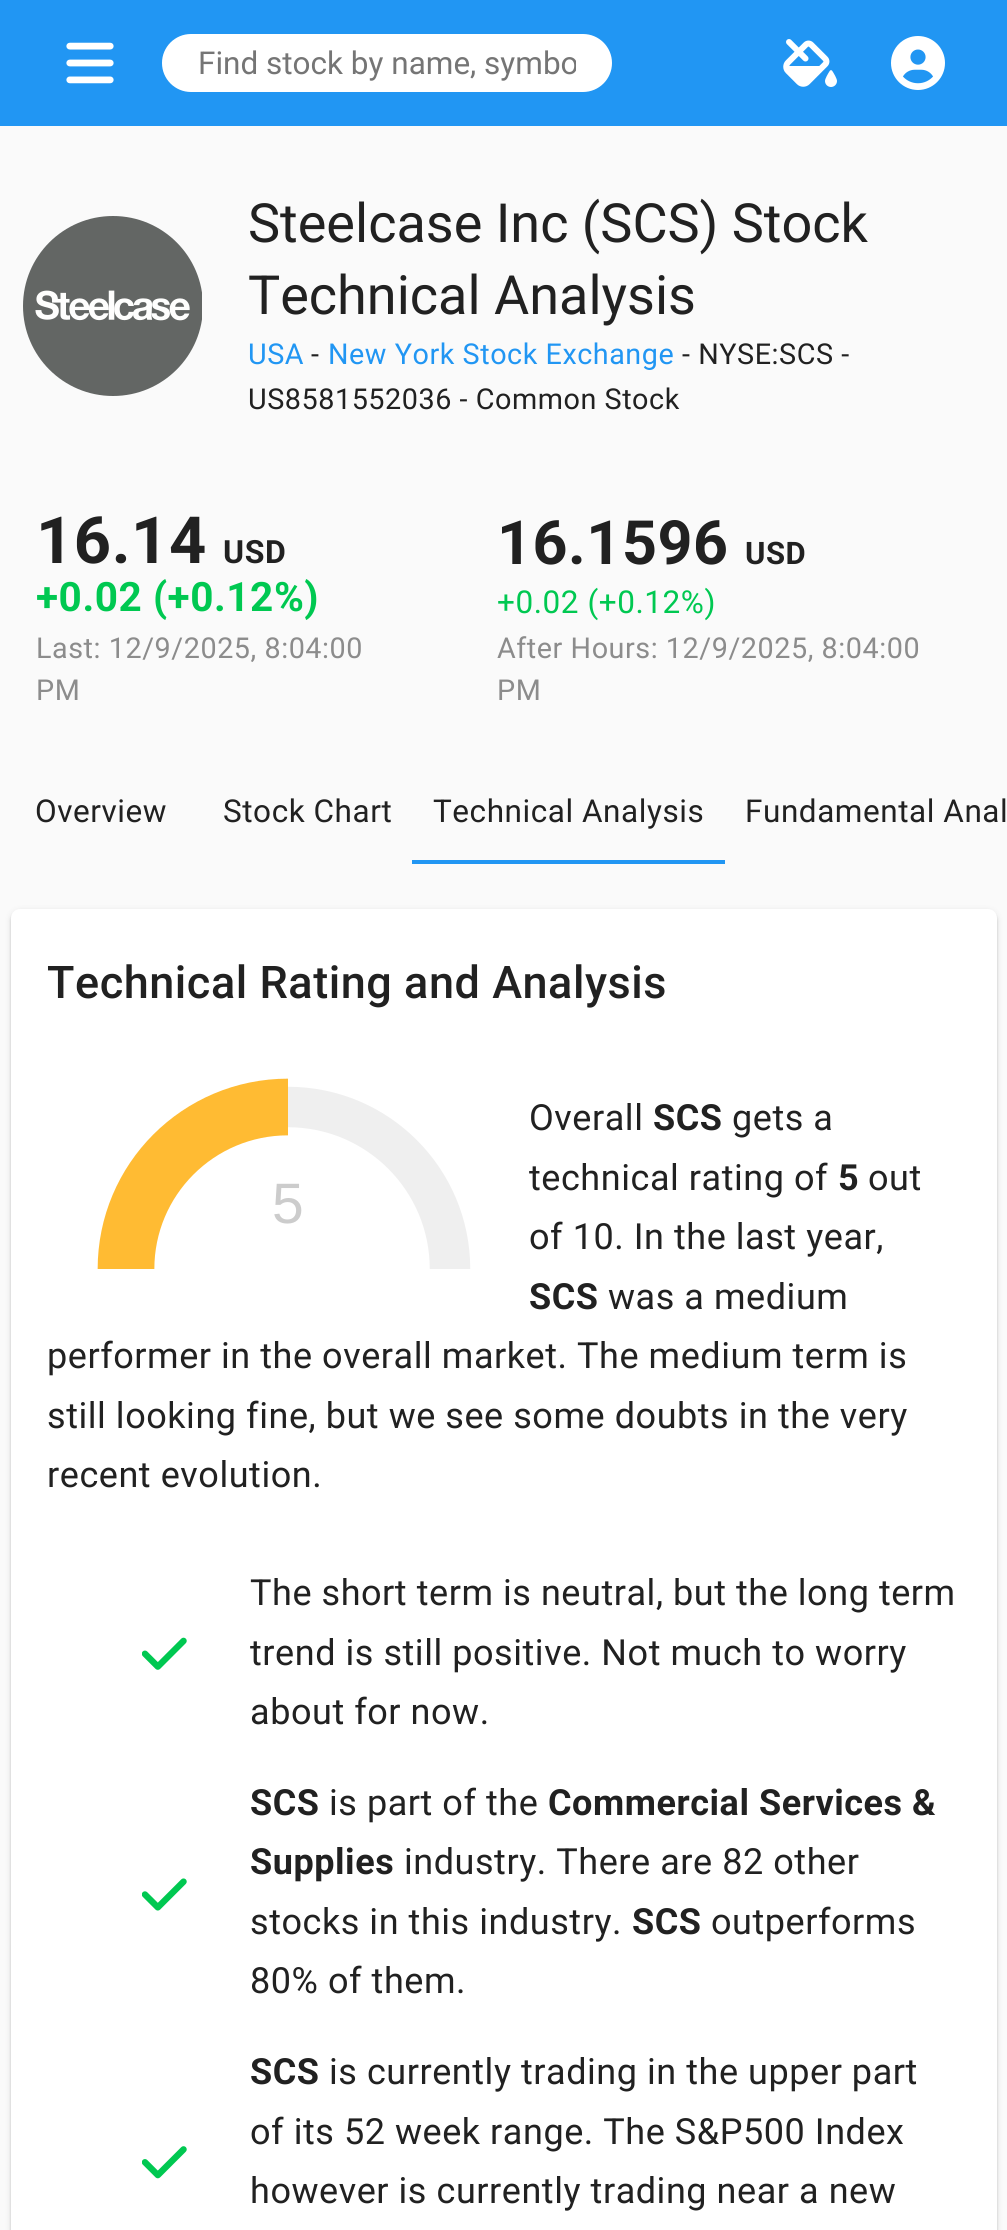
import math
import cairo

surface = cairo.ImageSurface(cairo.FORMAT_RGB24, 1007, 2230)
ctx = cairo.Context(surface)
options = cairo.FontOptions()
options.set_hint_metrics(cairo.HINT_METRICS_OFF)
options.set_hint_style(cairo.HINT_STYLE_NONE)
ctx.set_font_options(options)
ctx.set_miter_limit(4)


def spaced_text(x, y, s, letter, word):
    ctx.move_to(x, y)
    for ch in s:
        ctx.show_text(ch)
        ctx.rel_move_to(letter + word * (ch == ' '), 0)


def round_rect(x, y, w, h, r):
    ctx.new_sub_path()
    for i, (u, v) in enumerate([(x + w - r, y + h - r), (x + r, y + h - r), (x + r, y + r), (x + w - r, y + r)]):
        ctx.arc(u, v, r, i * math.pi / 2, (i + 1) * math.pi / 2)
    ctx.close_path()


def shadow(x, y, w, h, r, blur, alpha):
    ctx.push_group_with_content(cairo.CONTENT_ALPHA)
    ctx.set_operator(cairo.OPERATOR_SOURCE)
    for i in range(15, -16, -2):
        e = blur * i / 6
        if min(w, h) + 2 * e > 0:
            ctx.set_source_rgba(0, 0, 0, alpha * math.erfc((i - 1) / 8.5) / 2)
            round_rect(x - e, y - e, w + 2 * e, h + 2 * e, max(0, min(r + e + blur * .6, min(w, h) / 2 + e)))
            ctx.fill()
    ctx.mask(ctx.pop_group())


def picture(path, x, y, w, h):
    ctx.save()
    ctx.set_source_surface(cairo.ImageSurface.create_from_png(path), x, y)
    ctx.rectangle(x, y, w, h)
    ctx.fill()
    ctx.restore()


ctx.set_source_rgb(0.98, 0.98, 0.98)
ctx.paint()
ctx.set_source_rgb(0.129, 0.588, 0.953)
ctx.rectangle(0, 0, 1007, 126)
ctx.fill()
picture("img1.png", 66, 42, 48, 42)
ctx.set_source_rgb(1, 1, 1)
round_rect(162, 34, 450, 58, 29)
ctx.fill()
ctx.save()
ctx.rectangle(198, 45, 378, 36)
ctx.clip()
ctx.select_font_face("Roboto")
ctx.set_font_size(31.5)
ctx.set_source_rgb(0.459, 0.459, 0.459)
ctx.move_to(198, 74)
ctx.show_text("Find stock by name, symbo")
ctx.restore()
picture("img2.png", 783, 39, 54, 48)
picture("img3.png", 891, 36, 54, 54)
picture("img4.png", 23, 216, 179, 180)
ctx.select_font_face("Roboto")
ctx.set_font_size(54)
ctx.set_source_rgb(0.129, 0.129, 0.129)
ctx.move_to(248, 242)
ctx.show_text("Steelcase Inc (SCS) Stock")
ctx.move_to(248, 314)
ctx.show_text("Technical Analysis")
ctx.set_font_size(28.75)
ctx.set_source_rgb(0.129, 0.588, 0.953)
spaced_text(248, 364, "USA", 0.55, 0)
ctx.set_source_rgb(0.129, 0.129, 0.129)
spaced_text(311, 364, "-", 0.55, 0)
ctx.set_source_rgb(0.129, 0.588, 0.953)
spaced_text(328, 364, "New York Stock Exchange", 0.55, 0)
ctx.set_source_rgb(0.129, 0.129, 0.129)
spaced_text(682, 364, "- NYSE:SCS -", 0.55, 0)
spaced_text(248, 409, "US8581552036 - Common Stock", 0.55, 0)
ctx.select_font_face("Roboto", cairo.FONT_SLANT_NORMAL, cairo.FONT_WEIGHT_BOLD)
ctx.set_font_size(65)
spaced_text(36, 563, "16.14", 0.55, 0)
ctx.set_font_size(32)
spaced_text(223, 563, "USD", 0.55, 0)
ctx.set_font_size(40.5)
ctx.set_source_rgb(0, 0.784, 0.318)
spaced_text(36, 611, "+0.02 (+0.12%)", 0.55, 0)
ctx.select_font_face("Roboto")
ctx.set_font_size(28.75)
ctx.set_source_rgb(0.549, 0.549, 0.549)
spaced_text(36, 658, "Last: 12/9/2025, 8:04:00", 0.55, 0)
spaced_text(36, 700, "PM", 0.55, 0)
ctx.select_font_face("Roboto", cairo.FONT_SLANT_NORMAL, cairo.FONT_WEIGHT_BOLD)
ctx.set_font_size(61)
ctx.set_source_rgb(0.129, 0.129, 0.129)
spaced_text(497, 564, "16.1596", 0.55, 0)
ctx.set_font_size(31)
spaced_text(745, 564, "USD", 0.55, 0)
ctx.select_font_face("Roboto")
ctx.set_font_size(31.5)
ctx.set_source_rgb(0, 0.784, 0.318)
spaced_text(497, 613, "+0.02 (+0.12%)", 0.55, 0)
ctx.set_font_size(28.75)
ctx.set_source_rgb(0.549, 0.549, 0.549)
spaced_text(497, 658, "After Hours: 12/9/2025, 8:04:00", 0.55, 0)
spaced_text(497, 700, "PM", 0.55, 0)
ctx.set_font_size(31.5)
ctx.set_source_rgb(0.129, 0.129, 0.129)
spaced_text(35, 822, "Overview", 0.55, 0)
spaced_text(223, 822, "Stock Chart", 0.55, 0)
spaced_text(433, 822, "Technical Analysis", 0.55, 0)
ctx.set_source_rgb(0.129, 0.588, 0.953)
ctx.rectangle(412, 860, 313, 4)
ctx.fill()
ctx.set_source_rgb(0.129, 0.129, 0.129)
spaced_text(745, 822, "Fundamental Anal", 0.55, 0)
ctx.set_source_rgb(0, 0, 0)
shadow(11, 911, 986, 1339, 9, 3.5, 0.12)
shadow(11, 911, 986, 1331, 9, 1, 0.14)
ctx.set_source_rgb(1, 1, 1)
ctx.new_path()
ctx.move_to(20, 909)
ctx.line_to(988, 909)
ctx.curve_to(993, 909, 997, 913, 997, 918)
ctx.line_to(997, 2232)
ctx.line_to(11, 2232)
ctx.line_to(11, 918)
ctx.curve_to(11, 913, 15, 909, 20, 909)
ctx.close_path()
ctx.fill()
ctx.select_font_face("Roboto Medium")
ctx.set_font_size(45)
ctx.set_source_rgb(0.129, 0.129, 0.129)
spaced_text(47, 998, "Technical Rating and Analysis", 0.55, 0)
ctx.select_font_face("Roboto")
ctx.set_font_size(36)
spaced_text(529, 1130, "Overall", 0.55, 0)
ctx.select_font_face("Roboto", cairo.FONT_SLANT_NORMAL, cairo.FONT_WEIGHT_BOLD)
spaced_text(653, 1130, "SCS", 0.55, 0)
ctx.select_font_face("Roboto")
spaced_text(732, 1130, "gets a", 0.55, 0)
spaced_text(529, 1190, "technical rating of", 0.55, 0)
ctx.select_font_face("Roboto", cairo.FONT_SLANT_NORMAL, cairo.FONT_WEIGHT_BOLD)
spaced_text(838, 1190, "5", 0.55, 0)
ctx.select_font_face("Roboto")
spaced_text(868, 1190, "out", 0.55, 0)
spaced_text(529, 1249, "of 10. In the last year,", 0.55, 0)
ctx.select_font_face("Roboto", cairo.FONT_SLANT_NORMAL, cairo.FONT_WEIGHT_BOLD)
spaced_text(529, 1309, "SCS", 0.55, 0)
ctx.select_font_face("Roboto")
spaced_text(608, 1309, "was a medium", 0.55, 0)
spaced_text(47, 1368, "performer in the overall market. The medium term is", 0.55, 0)
spaced_text(47, 1428, "still looking fine, but we see some doubts in the very", 0.55, 0)
spaced_text(47, 1487, "recent evolution.", 0.55, 0)
ctx.new_path()
ctx.move_to(126, 1269)
ctx.curve_to(126, 1179.5, 198.5, 1107, 288, 1107)
ctx.curve_to(377.5, 1107, 450, 1179.5, 450, 1269)
ctx.set_source_rgb(0.937, 0.937, 0.937)
ctx.set_line_width(40.5)
ctx.stroke()
ctx.select_font_face("Liberation Sans")
ctx.set_font_size(57)
ctx.set_source_rgb(0.8, 0.8, 0.8)
spaced_text(272, 1223, "5", 1, 0)
ctx.new_path()
ctx.move_to(126, 1269)
ctx.curve_to(126, 1179.5, 198.5, 1107, 288, 1107)
ctx.set_source_rgb(1, 0.733, 0.2)
ctx.set_line_width(56.7)
ctx.stroke()
picture("img5.png", 142, 1637, 45, 33)
ctx.select_font_face("Roboto")
ctx.set_font_size(36)
ctx.set_source_rgb(0.129, 0.129, 0.129)
spaced_text(250, 1605, "The short term is neutral, but the long term", 0.55, 0)
spaced_text(250, 1665, "trend is still positive. Not much to worry", 0.55, 0)
spaced_text(250, 1724, "about for now.", 0.55, 0)
picture("img6.png", 142, 1878, 45, 33)
ctx.select_font_face("Roboto", cairo.FONT_SLANT_NORMAL, cairo.FONT_WEIGHT_BOLD)
spaced_text(250, 1815, "SCS", 0.55, 0)
ctx.select_font_face("Roboto")
spaced_text(329, 1815, "is part of the", 0.55, 0)
ctx.select_font_face("Roboto", cairo.FONT_SLANT_NORMAL, cairo.FONT_WEIGHT_BOLD)
spaced_text(548, 1815, "Commercial Services &", 0.55, 0)
spaced_text(250, 1874, "Supplies", 0.55, 0)
ctx.select_font_face("Roboto")
spaced_text(404, 1874, "industry. There are 82 other", 0.55, 0)
spaced_text(250, 1934, "stocks in this industry.", 0.55, 0)
ctx.select_font_face("Roboto", cairo.FONT_SLANT_NORMAL, cairo.FONT_WEIGHT_BOLD)
spaced_text(632, 1934, "SCS", 0.55, 0)
ctx.select_font_face("Roboto")
spaced_text(711, 1934, "outperforms", 0.55, 0)
spaced_text(250, 1993, "80% of them.", 0.55, 0)
picture("img7.png", 142, 2146, 45, 33)
ctx.select_font_face("Roboto", cairo.FONT_SLANT_NORMAL, cairo.FONT_WEIGHT_BOLD)
spaced_text(250, 2084, "SCS", 0.55, 0)
ctx.select_font_face("Roboto")
spaced_text(329, 2084, "is currently trading in the upper part", 0.55, 0)
spaced_text(250, 2144, "of its 52 week range. The S&P500 Index", 0.55, 0)
spaced_text(250, 2203, "however is currently trading near a new", 0.55, 0)
surface.write_to_png("page.png")
